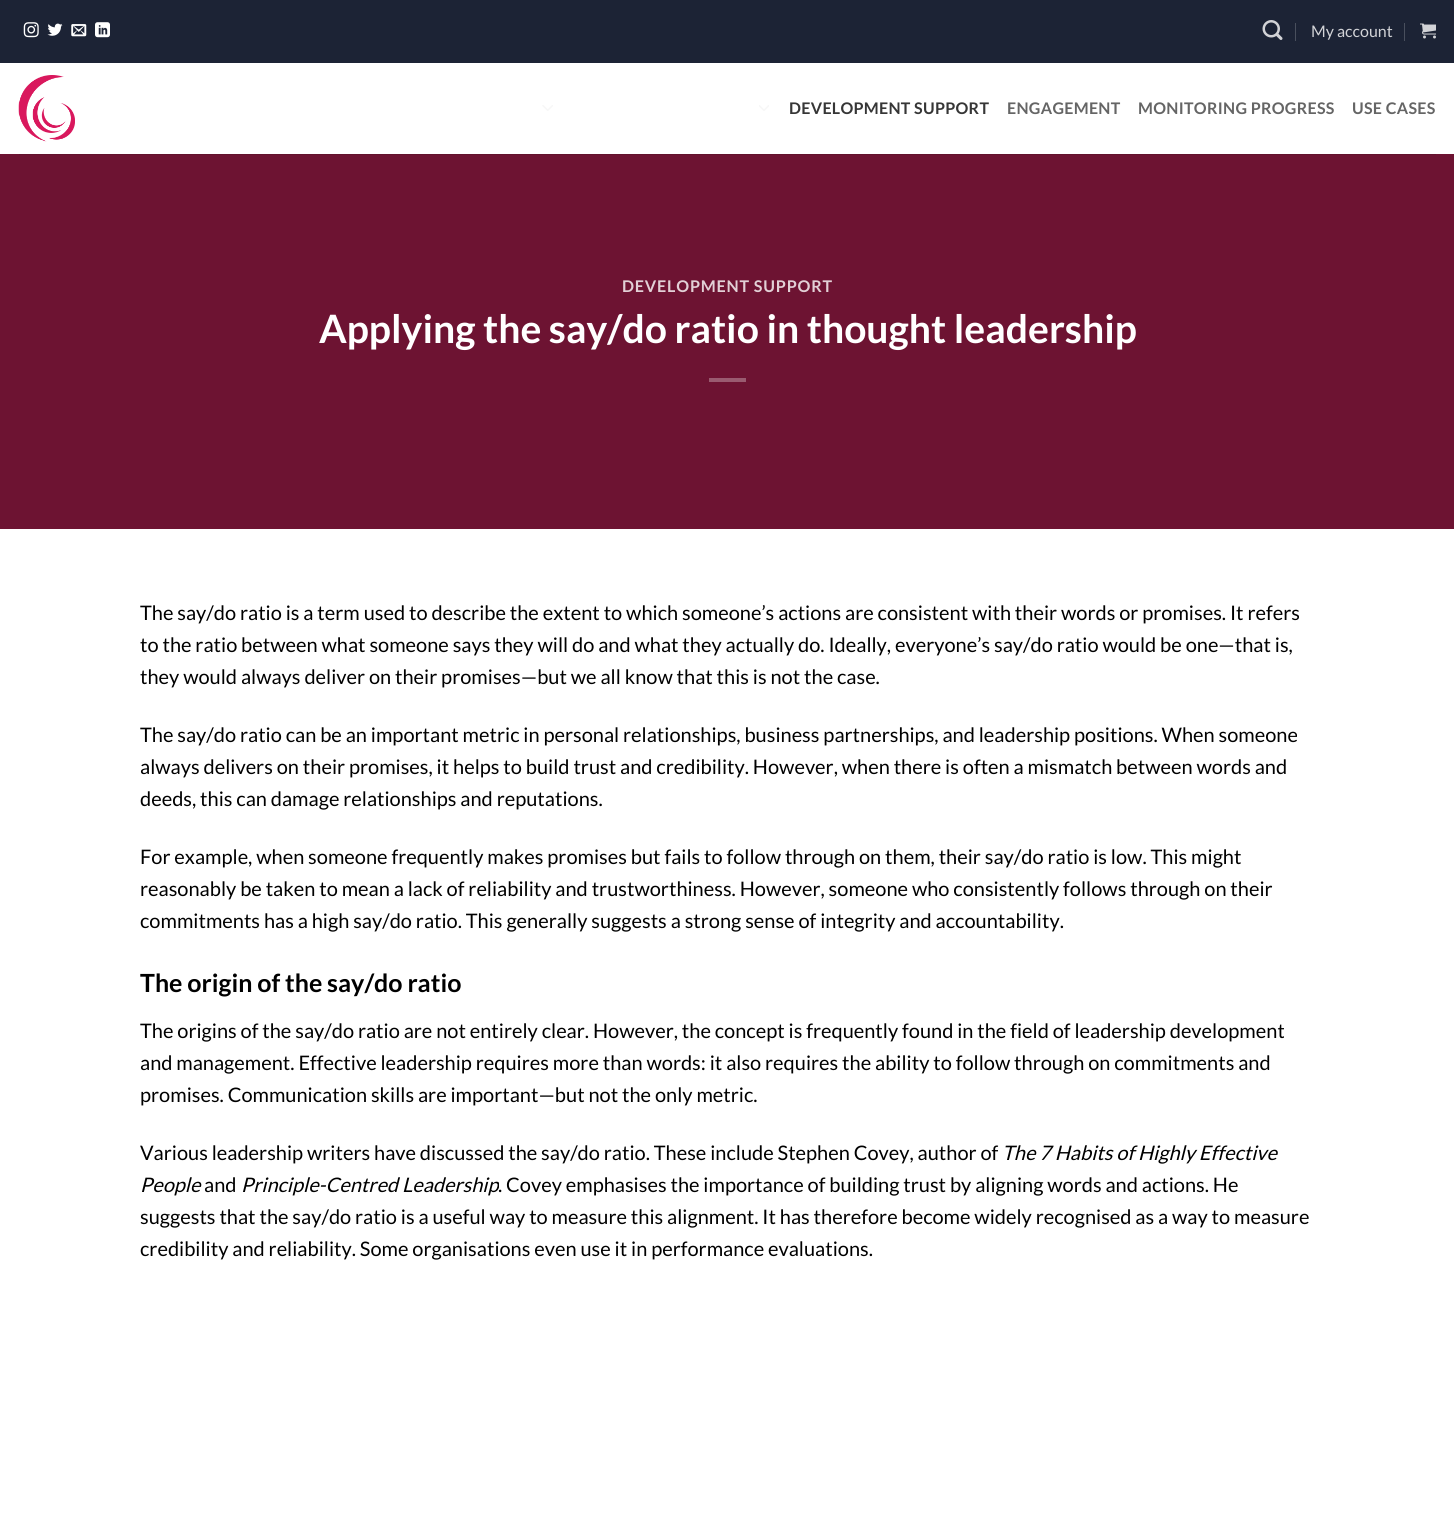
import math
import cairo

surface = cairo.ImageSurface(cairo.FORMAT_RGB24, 1454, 1518)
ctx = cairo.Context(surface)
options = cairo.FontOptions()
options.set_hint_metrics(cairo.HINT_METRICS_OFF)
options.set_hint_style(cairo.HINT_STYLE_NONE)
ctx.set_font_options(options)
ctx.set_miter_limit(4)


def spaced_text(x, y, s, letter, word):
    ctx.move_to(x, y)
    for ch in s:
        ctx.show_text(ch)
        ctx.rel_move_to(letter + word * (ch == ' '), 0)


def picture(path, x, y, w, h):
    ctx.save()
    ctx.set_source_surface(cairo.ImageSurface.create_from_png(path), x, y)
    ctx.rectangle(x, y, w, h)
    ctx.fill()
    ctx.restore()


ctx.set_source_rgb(1, 1, 1)
ctx.paint()
ctx.set_source_rgb(0.11, 0.137, 0.208)
ctx.rectangle(0, 0, 1454, 63)
ctx.fill()
picture("img1.png", 23, 22, 16, 16)
picture("img2.png", 47, 23, 16, 13)
picture("img3.png", 71, 24, 16, 13)
picture("img4.png", 95, 22, 15, 16)
picture("img5.png", 1262, 20, 21, 20)
ctx.set_source_rgb(0.286, 0.31, 0.365)
ctx.rectangle(1295, 23, 1, 18)
ctx.fill()
ctx.select_font_face("Lato")
ctx.set_font_size(16)
ctx.set_source_rgb(0.824, 0.827, 0.843)
ctx.move_to(1311, 37)
ctx.show_text("My account")
ctx.set_source_rgb(0.286, 0.31, 0.365)
ctx.rectangle(1404, 23, 1, 18)
ctx.fill()
picture("img6.png", 1420, 23, 16, 16)
picture("img7.png", 18, 75, 57, 67)
picture("img8.png", 542, 105, 11, 6)
picture("img9.png", 759, 105, 10, 6)
ctx.select_font_face("Lato", cairo.FONT_SLANT_NORMAL, cairo.FONT_WEIGHT_BOLD)
ctx.set_source_rgb(0.212, 0.212, 0.212)
spaced_text(789, 114, "DEVELOPMENT SUPPORT", 0.3, 0)
ctx.set_source_rgb(0.396, 0.396, 0.396)
spaced_text(1007, 114, "ENGAGEMENT", 0.3, 0)
spaced_text(1138, 114, "MONITORING PROGRESS", 0.3, 0)
spaced_text(1352, 114, "USE CASES", 0.3, 0)
ctx.set_source_rgb(0.427, 0.078, 0.196)
ctx.rectangle(0, 154, 1454, 375)
ctx.fill()
ctx.set_source_rgb(0.384, 0.071, 0.176)
ctx.rectangle(19, 154, 1417, 1)
ctx.fill()
ctx.set_font_size(16.1)
ctx.set_source_rgb(0.886, 0.816, 0.839)
spaced_text(622, 292, "DEVELOPMENT SUPPORT", 0.8, 0)
ctx.set_font_size(39.1)
ctx.set_source_rgb(1, 1, 1)
ctx.move_to(319, 343)
ctx.show_text("Applying the say/do ratio in thought leadership")
ctx.set_source_rgb(0.6, 0.357, 0.439)
ctx.rectangle(709, 378, 37, 4)
ctx.fill()
ctx.select_font_face("Lato")
ctx.set_font_size(20)
ctx.set_source_rgb(0, 0, 0)
ctx.move_to(140, 620)
ctx.show_text("The say/do ratio is a term used to describe the extent to which someone’s actions are consistent with their words or promises. It refers")
ctx.move_to(140, 652)
ctx.show_text("to the ratio between what someone says they will do and what they actually do. Ideally, everyone’s say/do ratio would be one—that is,")
ctx.move_to(140, 684)
ctx.show_text("they would always deliver on their promises—but we all know that this is not the case.")
ctx.move_to(140, 742)
ctx.show_text("The say/do ratio can be an important metric in personal relationships, business partnerships, and leadership positions. When someone")
ctx.move_to(140, 774)
ctx.show_text("always delivers on their promises, it helps to build trust and credibility. However, when there is often a mismatch between words and")
ctx.move_to(140, 806)
ctx.show_text("deeds, this can damage relationships and reputations.")
ctx.move_to(140, 864)
ctx.show_text("For example, when someone frequently makes promises but fails to follow through on them, their say/do ratio is low. This might")
ctx.move_to(140, 896)
ctx.show_text("reasonably be taken to mean a lack of reliability and trustworthiness. However, someone who consistently follows through on their")
ctx.move_to(140, 928)
ctx.show_text("commitments has a high say/do ratio. This generally suggests a strong sense of integrity and accountability.")
ctx.select_font_face("Lato", cairo.FONT_SLANT_NORMAL, cairo.FONT_WEIGHT_BOLD)
ctx.set_font_size(25)
ctx.move_to(140, 992)
ctx.show_text("The origin of the say/do ratio")
ctx.select_font_face("Lato")
ctx.set_font_size(20)
ctx.move_to(140, 1038)
ctx.show_text("The origins of the say/do ratio are not entirely clear. However, the concept is frequently found in the field of leadership development")
ctx.move_to(140, 1070)
ctx.show_text("and management. Effective leadership requires more than words: it also requires the ability to follow through on commitments and")
ctx.move_to(140, 1102)
ctx.show_text("promises. Communication skills are important—but not the only metric.")
ctx.move_to(140, 1160)
ctx.show_text("Various leadership writers have discussed the say/do ratio. These include Stephen Covey, author of")
ctx.select_font_face("Lato", cairo.FONT_SLANT_ITALIC)
ctx.move_to(1002, 1160)
ctx.show_text("The 7 Habits of Highly Effective")
ctx.move_to(140, 1192)
ctx.show_text("People")
ctx.select_font_face("Lato")
ctx.move_to(204, 1192)
ctx.show_text("and")
ctx.select_font_face("Lato", cairo.FONT_SLANT_ITALIC)
ctx.move_to(241, 1192)
ctx.show_text("Principle-Centred Leadership")
ctx.select_font_face("Lato")
ctx.move_to(498, 1192)
ctx.show_text(". Covey emphasises the importance of building trust by aligning words and actions. He")
ctx.move_to(140, 1224)
ctx.show_text("suggests that the say/do ratio is a useful way to measure this alignment. It has therefore become widely recognised as a way to measure")
ctx.move_to(140, 1256)
ctx.show_text("credibility and reliability. Some organisations even use it in performance evaluations.")
surface.write_to_png("page.png")
